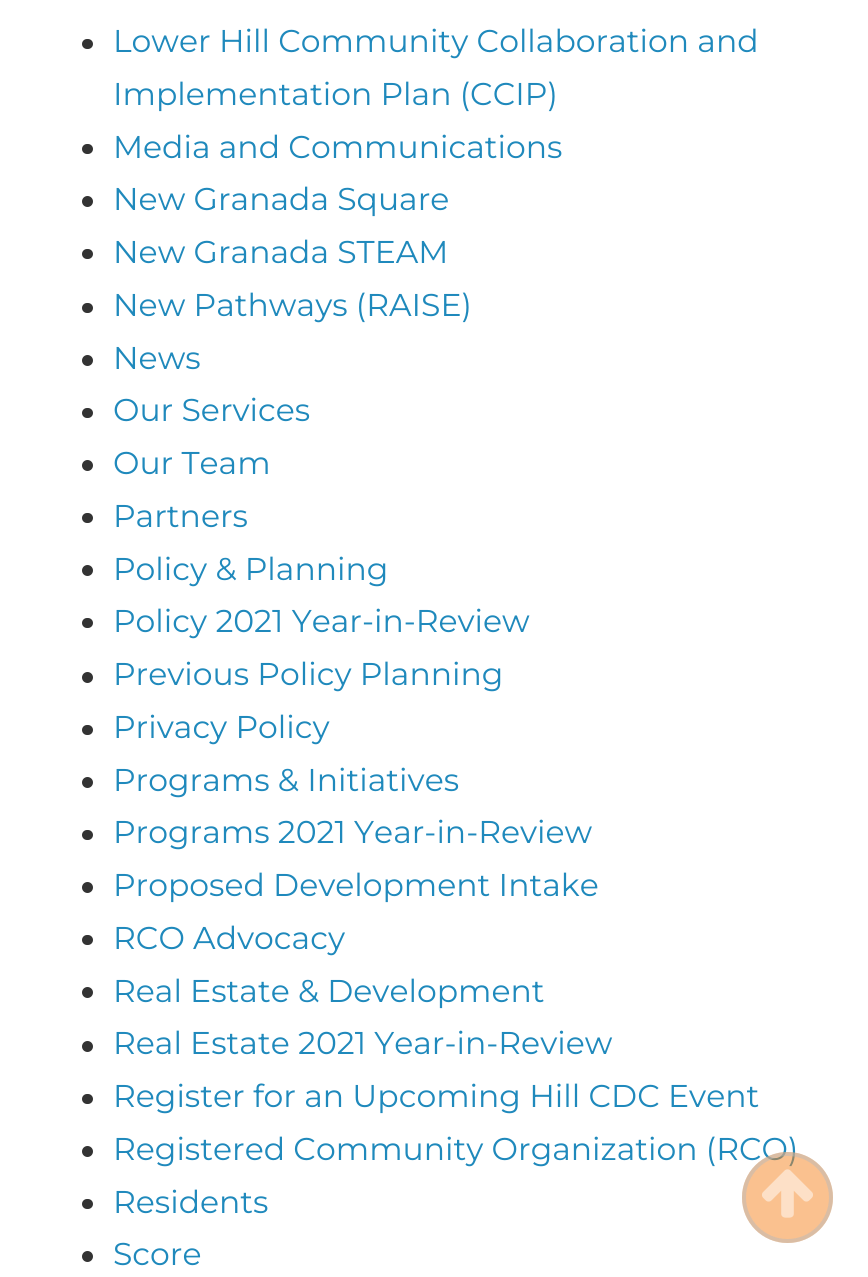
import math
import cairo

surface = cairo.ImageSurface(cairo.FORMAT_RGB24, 868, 1277)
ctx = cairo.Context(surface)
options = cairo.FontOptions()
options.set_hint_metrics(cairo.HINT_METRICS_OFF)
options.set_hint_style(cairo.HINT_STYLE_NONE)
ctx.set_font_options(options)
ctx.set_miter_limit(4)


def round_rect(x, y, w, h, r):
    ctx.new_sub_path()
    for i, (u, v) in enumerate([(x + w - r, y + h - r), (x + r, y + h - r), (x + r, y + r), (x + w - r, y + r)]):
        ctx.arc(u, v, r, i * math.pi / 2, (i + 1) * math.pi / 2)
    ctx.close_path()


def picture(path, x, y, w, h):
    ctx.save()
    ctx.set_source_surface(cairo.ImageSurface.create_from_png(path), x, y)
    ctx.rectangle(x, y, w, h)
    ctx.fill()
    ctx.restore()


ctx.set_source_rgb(1, 1, 1)
ctx.paint()
ctx.set_source_rgb(0.2, 0.2, 0.2)
round_rect(82, 39, 11, 10, 5)
ctx.fill()
ctx.select_font_face("Montserrat Thin")
ctx.set_font_size(31.5)
ctx.set_source_rgb(0.122, 0.537, 0.737)
ctx.move_to(113, 52)
ctx.show_text("Lower Hill Community Collaboration and")
ctx.move_to(113, 105)
ctx.show_text("Implementation Plan (CCIP)")
ctx.set_source_rgb(0.2, 0.2, 0.2)
round_rect(82, 144, 11, 10, 5)
ctx.fill()
ctx.set_source_rgb(0.122, 0.537, 0.737)
ctx.move_to(113, 158)
ctx.show_text("Media and Communications")
ctx.set_source_rgb(0.2, 0.2, 0.2)
ctx.new_path()
ctx.arc(87.5, 201.5, 5.5, 0, 2 * math.pi)
ctx.fill()
ctx.set_source_rgb(0.122, 0.537, 0.737)
ctx.move_to(113, 210)
ctx.show_text("New Granada Square")
ctx.set_source_rgb(0.2, 0.2, 0.2)
round_rect(82, 249, 11, 10, 5)
ctx.fill()
ctx.set_source_rgb(0.122, 0.537, 0.737)
ctx.move_to(113, 263)
ctx.show_text("New Granada STEAM")
ctx.set_source_rgb(0.2, 0.2, 0.2)
round_rect(82, 303, 11, 10, 5)
ctx.fill()
ctx.set_source_rgb(0.122, 0.537, 0.737)
ctx.move_to(113, 316)
ctx.show_text("New Pathways (RAISE)")
ctx.set_source_rgb(0.2, 0.2, 0.2)
ctx.new_path()
ctx.arc(87.5, 360.5, 5.5, 0, 2 * math.pi)
ctx.fill()
ctx.set_source_rgb(0.122, 0.537, 0.737)
ctx.move_to(113, 369)
ctx.show_text("News")
ctx.set_source_rgb(0.2, 0.2, 0.2)
round_rect(82, 408, 11, 10, 5)
ctx.fill()
ctx.set_source_rgb(0.122, 0.537, 0.737)
ctx.move_to(113, 421)
ctx.show_text("Our Services")
ctx.set_source_rgb(0.2, 0.2, 0.2)
ctx.new_path()
ctx.arc(87.5, 465.5, 5.5, 0, 2 * math.pi)
ctx.fill()
ctx.set_source_rgb(0.122, 0.537, 0.737)
ctx.move_to(113, 474)
ctx.show_text("Our Team")
ctx.set_source_rgb(0.2, 0.2, 0.2)
round_rect(82, 513, 11, 10, 5)
ctx.fill()
ctx.set_source_rgb(0.122, 0.537, 0.737)
ctx.move_to(113, 527)
ctx.show_text("Partners")
ctx.set_source_rgb(0.2, 0.2, 0.2)
ctx.new_path()
ctx.arc(87.5, 570.5, 5.5, 0, 2 * math.pi)
ctx.fill()
ctx.set_source_rgb(0.122, 0.537, 0.737)
ctx.move_to(113, 580)
ctx.show_text("Policy & Planning")
ctx.set_source_rgb(0.2, 0.2, 0.2)
round_rect(82, 618, 11, 10, 5)
ctx.fill()
ctx.set_source_rgb(0.122, 0.537, 0.737)
ctx.move_to(113, 632)
ctx.show_text("Policy 2021 Year-in-Review")
ctx.set_source_rgb(0.2, 0.2, 0.2)
ctx.new_path()
ctx.arc(87.5, 677.5, 5.5, 0, 2 * math.pi)
ctx.fill()
ctx.set_source_rgb(0.122, 0.537, 0.737)
ctx.move_to(113, 685)
ctx.show_text("Previous Policy Planning")
ctx.set_source_rgb(0.2, 0.2, 0.2)
round_rect(82, 725, 11, 10, 5)
ctx.fill()
ctx.set_source_rgb(0.122, 0.537, 0.737)
ctx.move_to(113, 738)
ctx.show_text("Privacy Policy")
ctx.set_source_rgb(0.2, 0.2, 0.2)
ctx.new_path()
ctx.arc(87.5, 782.5, 5.5, 0, 2 * math.pi)
ctx.fill()
ctx.set_source_rgb(0.122, 0.537, 0.737)
ctx.move_to(113, 791)
ctx.show_text("Programs & Initiatives")
ctx.set_source_rgb(0.2, 0.2, 0.2)
round_rect(82, 830, 11, 10, 5)
ctx.fill()
ctx.set_source_rgb(0.122, 0.537, 0.737)
ctx.move_to(113, 843)
ctx.show_text("Programs 2021 Year-in-Review")
ctx.set_source_rgb(0.2, 0.2, 0.2)
ctx.new_path()
ctx.arc(87.5, 887.5, 5.5, 0, 2 * math.pi)
ctx.fill()
ctx.set_source_rgb(0.122, 0.537, 0.737)
ctx.move_to(113, 896)
ctx.show_text("Proposed Development Intake")
ctx.set_source_rgb(0.2, 0.2, 0.2)
round_rect(82, 935, 11, 10, 5)
ctx.fill()
ctx.set_source_rgb(0.122, 0.537, 0.737)
ctx.move_to(113, 949)
ctx.show_text("RCO Advocacy")
ctx.set_source_rgb(0.2, 0.2, 0.2)
ctx.new_path()
ctx.arc(87.5, 992.5, 5.5, 0, 2 * math.pi)
ctx.fill()
ctx.set_source_rgb(0.122, 0.537, 0.737)
ctx.move_to(113, 1002)
ctx.show_text("Real Estate & Development")
ctx.set_source_rgb(0.2, 0.2, 0.2)
ctx.new_path()
ctx.arc(87.5, 1046.5, 5.5, 0, 2 * math.pi)
ctx.fill()
ctx.set_source_rgb(0.122, 0.537, 0.737)
ctx.move_to(113, 1054)
ctx.show_text("Real Estate 2021 Year-in-Review")
ctx.set_source_rgb(0.2, 0.2, 0.2)
round_rect(82, 1094, 11, 10, 5)
ctx.fill()
ctx.set_source_rgb(0.122, 0.537, 0.737)
ctx.move_to(113, 1107)
ctx.show_text("Register for an Upcoming Hill CDC Event")
ctx.set_source_rgb(0.2, 0.2, 0.2)
ctx.new_path()
ctx.arc(87.5, 1151.5, 5.5, 0, 2 * math.pi)
ctx.fill()
ctx.set_source_rgb(0.122, 0.537, 0.737)
ctx.move_to(113, 1160)
ctx.show_text("Registered Community Organization (RCO)")
ctx.set_source_rgb(0.2, 0.2, 0.2)
round_rect(82, 1199, 11, 10, 5)
ctx.fill()
ctx.set_source_rgb(0.122, 0.537, 0.737)
ctx.move_to(113, 1213)
ctx.show_text("Residents")
ctx.set_source_rgb(0.2, 0.2, 0.2)
ctx.new_path()
ctx.arc(87.5, 1256.5, 5.5, 0, 2 * math.pi)
ctx.fill()
ctx.set_source_rgb(0.122, 0.537, 0.737)
ctx.move_to(113, 1265)
ctx.show_text("Score")
ctx.set_source_rgba(0.961, 0.518, 0.129, 0.5)
ctx.new_path()
ctx.arc(787.5, 1197.5, 45.5, 0, 2 * math.pi)
ctx.fill()
ctx.arc(787.5, 1197.5, 43.5, 0, 2 * math.pi)
ctx.set_source_rgba(0.733, 0.733, 0.733, 0.5)
ctx.set_line_width(4)
ctx.stroke()
picture("img1.png", 762, 1169, 51, 49)
surface.write_to_png("page.png")
